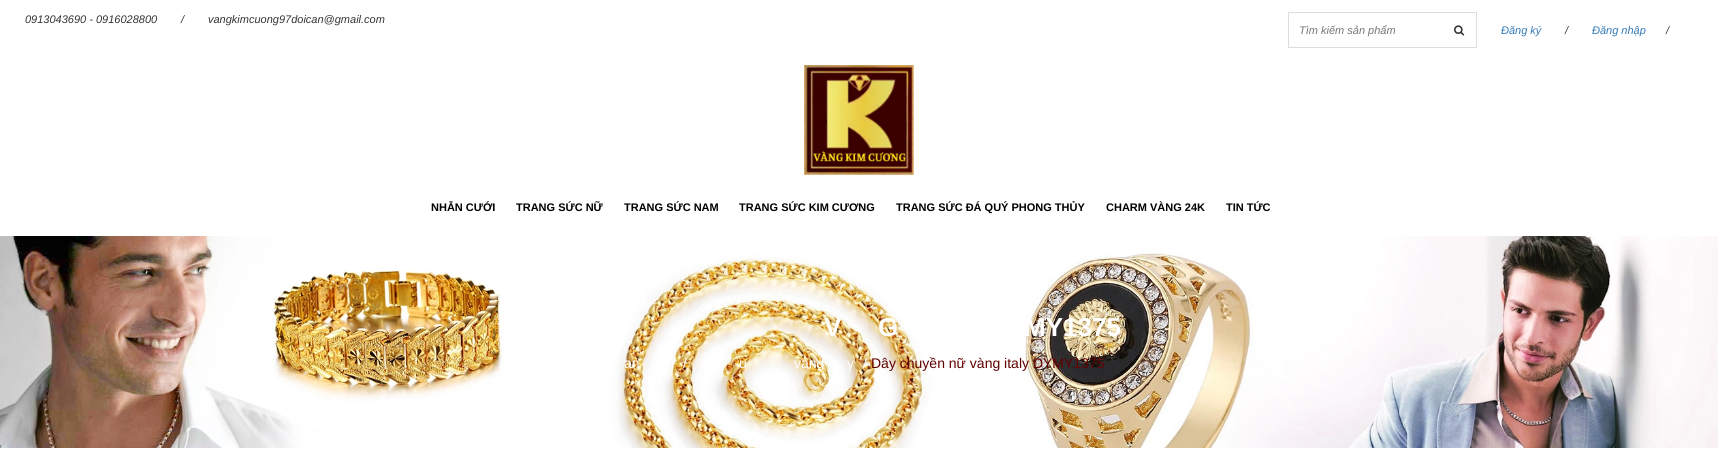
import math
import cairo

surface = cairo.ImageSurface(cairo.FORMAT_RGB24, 1718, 456)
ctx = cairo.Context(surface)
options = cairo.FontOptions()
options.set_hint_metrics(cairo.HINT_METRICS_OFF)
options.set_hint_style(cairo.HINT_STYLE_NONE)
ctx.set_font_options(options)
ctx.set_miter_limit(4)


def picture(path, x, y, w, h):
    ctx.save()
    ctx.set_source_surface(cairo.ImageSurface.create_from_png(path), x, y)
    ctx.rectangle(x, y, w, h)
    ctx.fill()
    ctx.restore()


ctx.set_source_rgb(1, 1, 1)
ctx.paint()
ctx.select_font_face("Liberation Sans", cairo.FONT_SLANT_ITALIC)
ctx.set_font_size(11)
ctx.set_source_rgb(0.2, 0.2, 0.2)
ctx.move_to(25, 23)
ctx.show_text("0913043690 - 0916028800")
ctx.move_to(181, 23)
ctx.show_text("/")
ctx.move_to(208, 23)
ctx.show_text("vangkimcuong97doican@gmail.com")
ctx.rectangle(1288.5, 12.5, 188, 35)
ctx.set_source_rgb(0.867, 0.867, 0.867)
ctx.set_line_width(1)
ctx.stroke()
ctx.set_source_rgb(0.459, 0.459, 0.459)
ctx.move_to(1299, 34)
ctx.show_text("Tìm kiếm sản phẩm")
picture("img1.png", 1454, 25, 11, 11)
ctx.set_source_rgb(0.2, 0.478, 0.718)
ctx.move_to(1501, 34)
ctx.show_text("Đăng ký")
ctx.set_source_rgb(0.2, 0.2, 0.2)
ctx.move_to(1565, 34)
ctx.show_text("/")
ctx.set_source_rgb(0.2, 0.478, 0.718)
ctx.move_to(1592, 34)
ctx.show_text("Đăng nhập")
ctx.set_source_rgb(0.2, 0.2, 0.2)
ctx.move_to(1666, 34)
ctx.show_text("/")
picture("img2.png", 804, 65, 110, 110)
ctx.select_font_face("Liberation Sans", cairo.FONT_SLANT_NORMAL, cairo.FONT_WEIGHT_BOLD)
ctx.set_source_rgb(0, 0, 0)
ctx.move_to(431, 211)
ctx.show_text("NHẪN CƯỚI")
ctx.move_to(516, 211)
ctx.show_text("TRANG SỨC NỮ")
ctx.move_to(624, 211)
ctx.show_text("TRANG SỨC NAM")
ctx.move_to(739, 211)
ctx.show_text("TRANG SỨC KIM CƯƠNG")
ctx.move_to(896, 211)
ctx.show_text("TRANG SỨC ĐÁ QUÝ PHONG THỦY")
ctx.move_to(1106, 211)
ctx.show_text("CHARM VÀNG 24K")
ctx.move_to(1226, 211)
ctx.show_text("TIN TỨC")
picture("img3.png", 0, 236, 1718, 212)
ctx.set_font_size(26)
ctx.set_source_rgb(1, 1, 1)
ctx.move_to(824, 336)
ctx.show_text("V")
ctx.move_to(878, 336)
ctx.show_text("G")
ctx.move_to(1024, 336)
ctx.show_text("MY1375")
ctx.select_font_face("Liberation Sans")
ctx.set_font_size(14)
ctx.move_to(624, 368)
ctx.show_text("an")
ctx.move_to(683, 368)
ctx.show_text("/")
ctx.move_to(739, 368)
ctx.show_text("u")
ctx.move_to(794, 368)
ctx.show_text("vàng")
ctx.move_to(847, 368)
ctx.show_text("y")
ctx.move_to(863, 368)
ctx.show_text("/")
ctx.set_source_rgb(0.384, 0, 0)
ctx.move_to(871, 368)
ctx.show_text("Dây chuyền nữ vàng italy DYMY1375")
surface.write_to_png("page.png")
